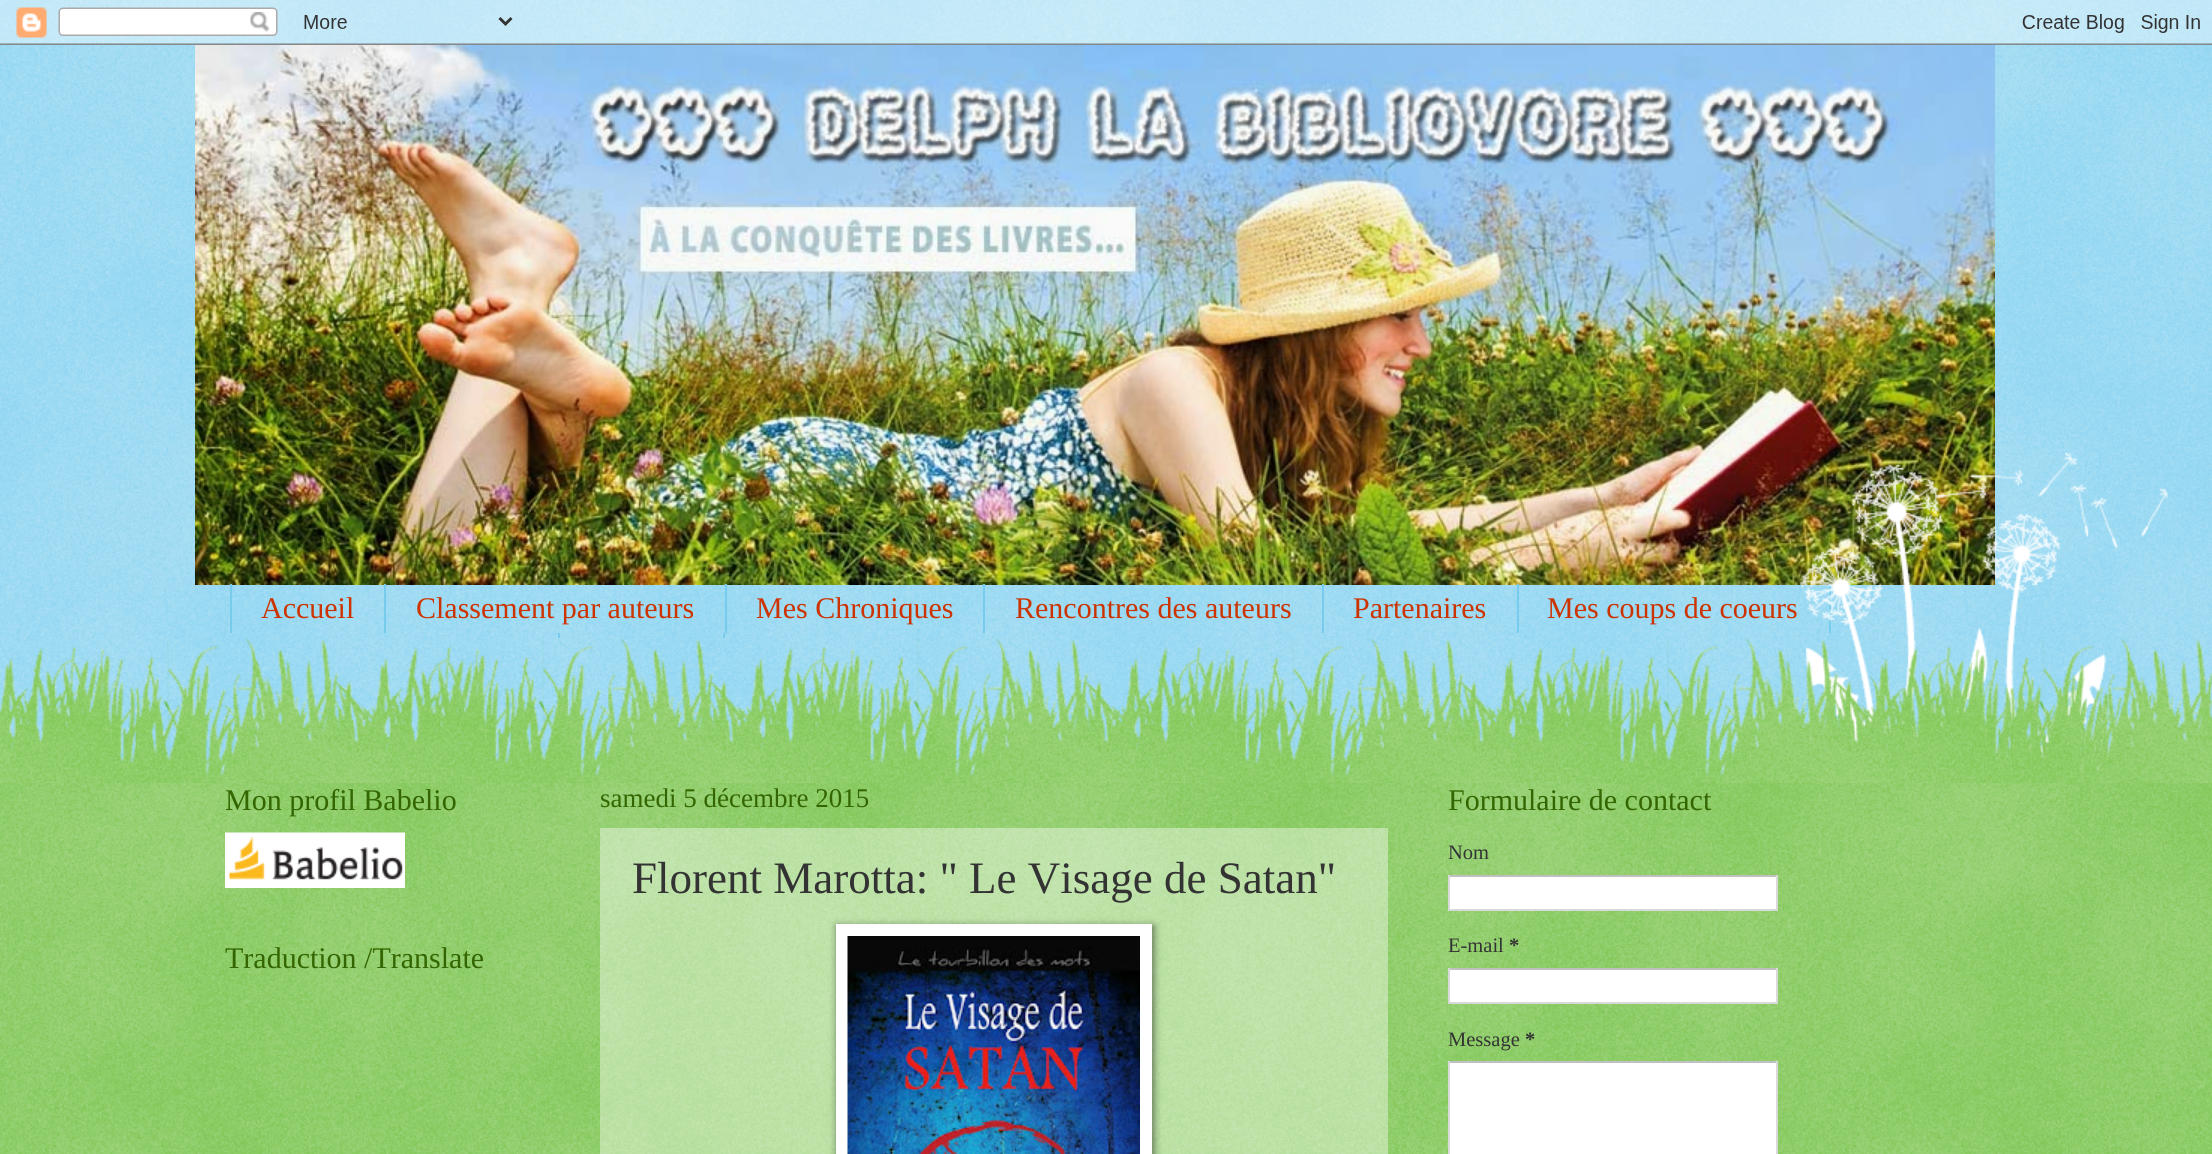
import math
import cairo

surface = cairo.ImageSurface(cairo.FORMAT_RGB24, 2212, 1154)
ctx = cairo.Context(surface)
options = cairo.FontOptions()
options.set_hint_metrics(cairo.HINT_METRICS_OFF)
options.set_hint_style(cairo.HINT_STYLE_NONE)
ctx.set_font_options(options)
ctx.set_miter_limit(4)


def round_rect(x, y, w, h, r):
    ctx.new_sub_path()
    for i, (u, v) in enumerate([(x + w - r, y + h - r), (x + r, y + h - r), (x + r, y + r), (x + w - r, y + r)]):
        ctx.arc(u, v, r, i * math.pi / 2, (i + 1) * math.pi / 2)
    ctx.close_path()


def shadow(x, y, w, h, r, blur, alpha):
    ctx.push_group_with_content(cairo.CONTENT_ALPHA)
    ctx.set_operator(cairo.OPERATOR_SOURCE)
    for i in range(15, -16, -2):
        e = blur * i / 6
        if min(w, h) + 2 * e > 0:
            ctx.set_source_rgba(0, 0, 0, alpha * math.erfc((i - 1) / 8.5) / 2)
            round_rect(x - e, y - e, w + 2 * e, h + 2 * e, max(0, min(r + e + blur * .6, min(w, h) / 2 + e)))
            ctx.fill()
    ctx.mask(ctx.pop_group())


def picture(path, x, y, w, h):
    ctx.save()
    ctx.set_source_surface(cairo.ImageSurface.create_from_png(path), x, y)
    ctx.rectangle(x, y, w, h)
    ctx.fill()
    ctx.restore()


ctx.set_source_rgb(0.467, 0.8, 0.933)
ctx.paint()
picture("img1.png", 0, 0, 2212, 776)
picture("img2.png", 0, 0, 2212, 45)
picture("img3.png", 195, 45, 1800, 540)
ctx.set_source_rgb(0.467, 0.8, 0.933)
ctx.rectangle(384, 584, 2, 49)
ctx.fill()
ctx.rectangle(230, 584, 2, 49)
ctx.fill()
ctx.select_font_face("Liberation Serif")
ctx.set_font_size(30)
ctx.set_source_rgb(0.8, 0.2, 0)
ctx.move_to(261, 618)
ctx.show_text("Accueil")
ctx.set_source_rgb(0.467, 0.8, 0.933)
ctx.rectangle(725, 584, 2, 49)
ctx.fill()
ctx.set_source_rgb(0.8, 0.2, 0)
ctx.move_to(416, 618)
ctx.show_text("Classement par auteurs")
ctx.set_source_rgb(0.467, 0.8, 0.933)
ctx.rectangle(983, 584, 2, 49)
ctx.fill()
ctx.set_source_rgb(0.8, 0.2, 0)
ctx.move_to(756, 618)
ctx.show_text("Mes Chroniques")
ctx.set_source_rgb(0.467, 0.8, 0.933)
ctx.rectangle(1322, 584, 2, 49)
ctx.fill()
ctx.set_source_rgb(0.8, 0.2, 0)
ctx.move_to(1015, 618)
ctx.show_text("Rencontres des auteurs")
ctx.set_source_rgb(0.467, 0.8, 0.933)
ctx.rectangle(1517, 584, 2, 49)
ctx.fill()
ctx.set_source_rgb(0.8, 0.2, 0)
ctx.move_to(1353, 618)
ctx.show_text("Partenaires")
ctx.set_source_rgb(0.467, 0.8, 0.933)
ctx.rectangle(1829, 584, 2, 49)
ctx.fill()
ctx.set_source_rgb(0.8, 0.2, 0)
ctx.move_to(1547, 618)
ctx.show_text("Mes coups de coeurs")
ctx.set_source_rgb(0.467, 0.8, 0.933)
ctx.rectangle(558, 633, 2, 5)
ctx.fill()
ctx.rectangle(723, 633, 2, 5)
ctx.fill()
ctx.set_source_rgb(0.4, 0.733, 0.2)
ctx.rectangle(0, 783, 2212, 371)
ctx.fill()
picture("img4.png", 0, 783, 2212, 371)
picture("img5.png", 1792, 453, 376, 323)
picture("img6.png", 0, 638, 2212, 145)
ctx.set_source_rgb(0.2, 0.4, 0)
ctx.move_to(225, 810)
ctx.show_text("Mon profil Babelio")
picture("img7.png", 225, 832, 180, 56)
ctx.move_to(225, 968)
ctx.show_text("Traduction /Translate")
ctx.set_font_size(27)
ctx.move_to(600, 807)
ctx.show_text("samedi 5 décembre 2015")
ctx.set_source_rgba(1, 1, 1, 0.4)
ctx.rectangle(600, 828, 788, 326)
ctx.fill()
ctx.set_font_size(45)
ctx.set_source_rgb(0.2, 0.2, 0.2)
ctx.move_to(632, 893)
ctx.show_text("Florent Marotta: \" Le Visage de Satan\"")
ctx.set_source_rgb(0, 0, 0)
shadow(837, 926, 317, 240, 0, 4, 0.5)
ctx.set_source_rgb(1, 1, 1)
ctx.rectangle(836, 924, 316, 230)
ctx.fill()
picture("img8.png", 847, 936, 293, 218)
ctx.set_font_size(30)
ctx.set_source_rgb(0.2, 0.4, 0)
ctx.move_to(1448, 810)
ctx.show_text("Formulaire de contact")
ctx.set_font_size(20.5)
ctx.set_source_rgb(0.2, 0.2, 0.2)
ctx.move_to(1448, 859)
ctx.show_text("Nom")
ctx.set_source_rgb(1, 1, 1)
ctx.rectangle(1450, 877, 326, 32)
ctx.fill()
ctx.set_source_rgb(0.753, 0.753, 0.753)
ctx.rectangle(1448, 875, 330, 2)
ctx.fill()
ctx.set_source_rgb(0.851, 0.851, 0.851)
ctx.rectangle(1776, 875, 2, 36)
ctx.fill()
ctx.rectangle(1448, 909, 330, 2)
ctx.fill()
ctx.rectangle(1448, 875, 2, 36)
ctx.fill()
ctx.set_source_rgb(0.2, 0.2, 0.2)
ctx.move_to(1448, 952)
ctx.show_text("E-mail")
ctx.select_font_face("Liberation Serif", cairo.FONT_SLANT_NORMAL, cairo.FONT_WEIGHT_BOLD)
ctx.move_to(1509, 952)
ctx.show_text("*")
ctx.set_source_rgb(1, 1, 1)
ctx.rectangle(1450, 970, 326, 32)
ctx.fill()
ctx.set_source_rgb(0.753, 0.753, 0.753)
ctx.rectangle(1448, 968, 330, 2)
ctx.fill()
ctx.set_source_rgb(0.851, 0.851, 0.851)
ctx.rectangle(1776, 968, 2, 36)
ctx.fill()
ctx.rectangle(1448, 1002, 330, 2)
ctx.fill()
ctx.rectangle(1448, 968, 2, 36)
ctx.fill()
ctx.select_font_face("Liberation Serif")
ctx.set_source_rgb(0.2, 0.2, 0.2)
ctx.move_to(1448, 1046)
ctx.show_text("Message")
ctx.select_font_face("Liberation Serif", cairo.FONT_SLANT_NORMAL, cairo.FONT_WEIGHT_BOLD)
ctx.move_to(1525, 1046)
ctx.show_text("*")
ctx.set_source_rgb(1, 1, 1)
ctx.rectangle(1450, 1063, 326, 91)
ctx.fill()
ctx.set_source_rgb(0.753, 0.753, 0.753)
ctx.rectangle(1448, 1061, 330, 2)
ctx.fill()
ctx.set_source_rgb(0.851, 0.851, 0.851)
ctx.rectangle(1776, 1061, 2, 93)
ctx.fill()
ctx.rectangle(1448, 1061, 2, 93)
ctx.fill()
surface.write_to_png("page.png")
